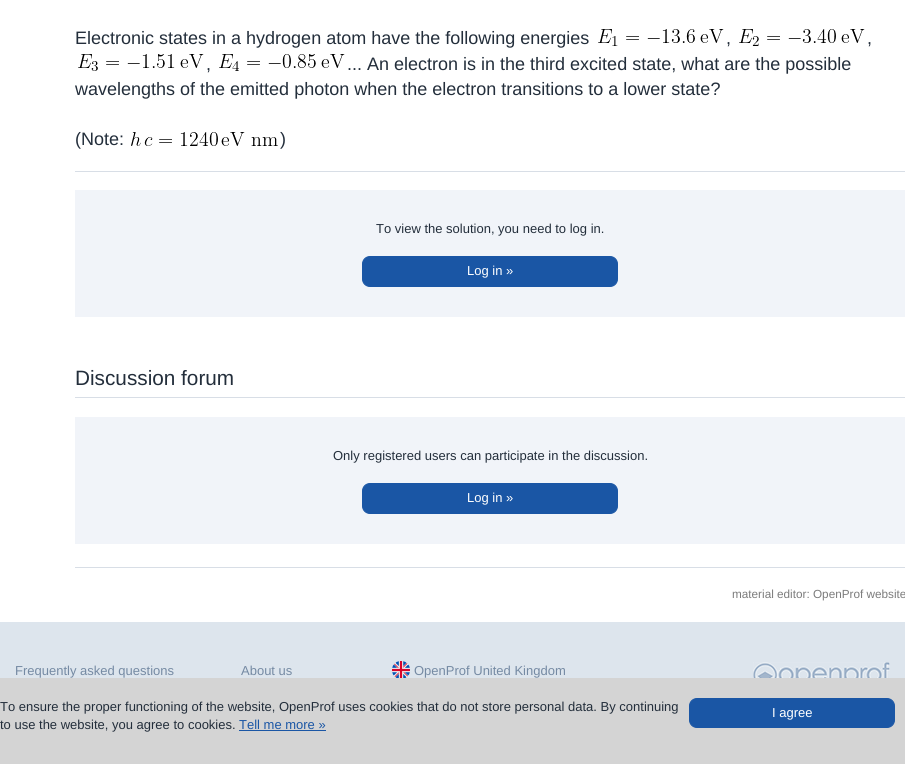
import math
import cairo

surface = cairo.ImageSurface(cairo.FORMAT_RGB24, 905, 764)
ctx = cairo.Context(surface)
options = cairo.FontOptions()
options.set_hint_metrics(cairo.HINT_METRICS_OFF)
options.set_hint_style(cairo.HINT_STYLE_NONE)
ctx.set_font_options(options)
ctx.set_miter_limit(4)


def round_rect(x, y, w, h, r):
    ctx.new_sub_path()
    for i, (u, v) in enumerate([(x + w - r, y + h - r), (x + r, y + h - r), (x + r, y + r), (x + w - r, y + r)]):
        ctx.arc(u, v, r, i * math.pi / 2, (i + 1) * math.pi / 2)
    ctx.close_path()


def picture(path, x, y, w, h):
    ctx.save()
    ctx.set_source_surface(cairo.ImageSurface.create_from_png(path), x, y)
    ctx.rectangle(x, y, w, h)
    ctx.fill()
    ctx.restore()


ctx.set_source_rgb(1, 1, 1)
ctx.paint()
ctx.select_font_face("Liberation Sans")
ctx.set_font_size(18)
ctx.set_source_rgb(0.137, 0.18, 0.231)
ctx.move_to(75, 44)
ctx.show_text("Electronic states in a hydrogen atom have the following energies")
picture("img1.png", 598, 29, 126, 17)
ctx.move_to(726, 44)
ctx.show_text(",")
picture("img2.png", 739, 29, 126, 17)
ctx.move_to(867, 44)
ctx.show_text(",")
picture("img3.png", 78, 54, 126, 17)
ctx.move_to(206, 70)
ctx.show_text(",")
picture("img4.png", 219, 54, 126, 17)
ctx.move_to(347, 70)
ctx.show_text("... An electron is in the third excited state, what are the possible")
ctx.move_to(75, 95)
ctx.show_text("wavelengths of the emitted photon when the electron transitions to a lower state?")
ctx.move_to(75, 145)
ctx.show_text("(Note:")
picture("img5.png", 131, 132, 147, 14)
ctx.move_to(280, 145)
ctx.show_text(")")
ctx.set_source_rgb(0.847, 0.871, 0.902)
ctx.rectangle(75, 171, 830, 1)
ctx.fill()
ctx.set_source_rgb(0.945, 0.957, 0.973)
ctx.rectangle(75, 190, 830, 127)
ctx.fill()
ctx.set_font_size(13)
ctx.set_source_rgb(0.137, 0.18, 0.231)
ctx.move_to(376, 233)
ctx.show_text("To view the solution, you need to log in.")
ctx.set_source_rgb(0.102, 0.337, 0.647)
round_rect(362.5, 256.5, 255, 30, 7.5)
ctx.fill_preserve()
ctx.set_line_width(1)
ctx.stroke()
ctx.set_source_rgb(1, 1, 1)
ctx.move_to(467, 275)
ctx.show_text("Log in »")
ctx.set_font_size(20.75)
ctx.set_source_rgb(0.137, 0.18, 0.231)
ctx.move_to(75, 385)
ctx.show_text("Discussion forum")
ctx.set_source_rgb(0.847, 0.871, 0.902)
ctx.rectangle(75, 397, 830, 1)
ctx.fill()
ctx.set_source_rgb(0.945, 0.957, 0.973)
ctx.rectangle(75, 417, 830, 127)
ctx.fill()
ctx.set_font_size(13)
ctx.set_source_rgb(0.137, 0.18, 0.231)
ctx.move_to(333, 460)
ctx.show_text("Only registered users can participate in the discussion.")
ctx.set_source_rgb(0.102, 0.337, 0.647)
round_rect(362.5, 483.5, 255, 30, 7.5)
ctx.fill_preserve()
ctx.stroke()
ctx.set_source_rgb(1, 1, 1)
ctx.move_to(467, 502)
ctx.show_text("Log in »")
ctx.set_source_rgb(0.847, 0.871, 0.902)
ctx.rectangle(75, 567, 830, 1)
ctx.fill()
ctx.set_font_size(11.75)
ctx.set_source_rgb(0.482, 0.482, 0.482)
ctx.move_to(732, 598)
ctx.show_text("material editor: OpenProf website")
ctx.set_source_rgb(0.867, 0.898, 0.929)
ctx.rectangle(0, 622, 905, 56)
ctx.fill()
ctx.set_font_size(13)
ctx.set_source_rgb(0.459, 0.541, 0.639)
ctx.move_to(15, 675)
ctx.show_text("Frequently asked questions")
ctx.move_to(241, 675)
ctx.show_text("About us")
picture("img6.png", 392, 661, 18, 17)
ctx.move_to(414, 675)
ctx.show_text("OpenProf United Kingdom")
picture("img7.png", 753, 662, 137, 16)
ctx.set_source_rgb(0.831, 0.831, 0.831)
ctx.rectangle(0, 678, 905, 86)
ctx.fill()
ctx.set_source_rgb(0.137, 0.18, 0.231)
ctx.move_to(0, 711)
ctx.show_text("To ensure the proper functioning of the website, OpenProf uses cookies that do not store personal data. By continuing")
ctx.move_to(0, 729)
ctx.show_text("to use the website, you agree to cookies.")
ctx.set_source_rgb(0.102, 0.337, 0.647)
ctx.move_to(239, 729)
ctx.show_text("Tell me more »")
ctx.rectangle(239, 730, 87, 1)
ctx.fill()
round_rect(689.5, 698.5, 205, 29, 7.5)
ctx.fill_preserve()
ctx.stroke()
ctx.set_source_rgb(1, 1, 1)
ctx.move_to(772, 717)
ctx.show_text("I agree")
surface.write_to_png("page.png")
